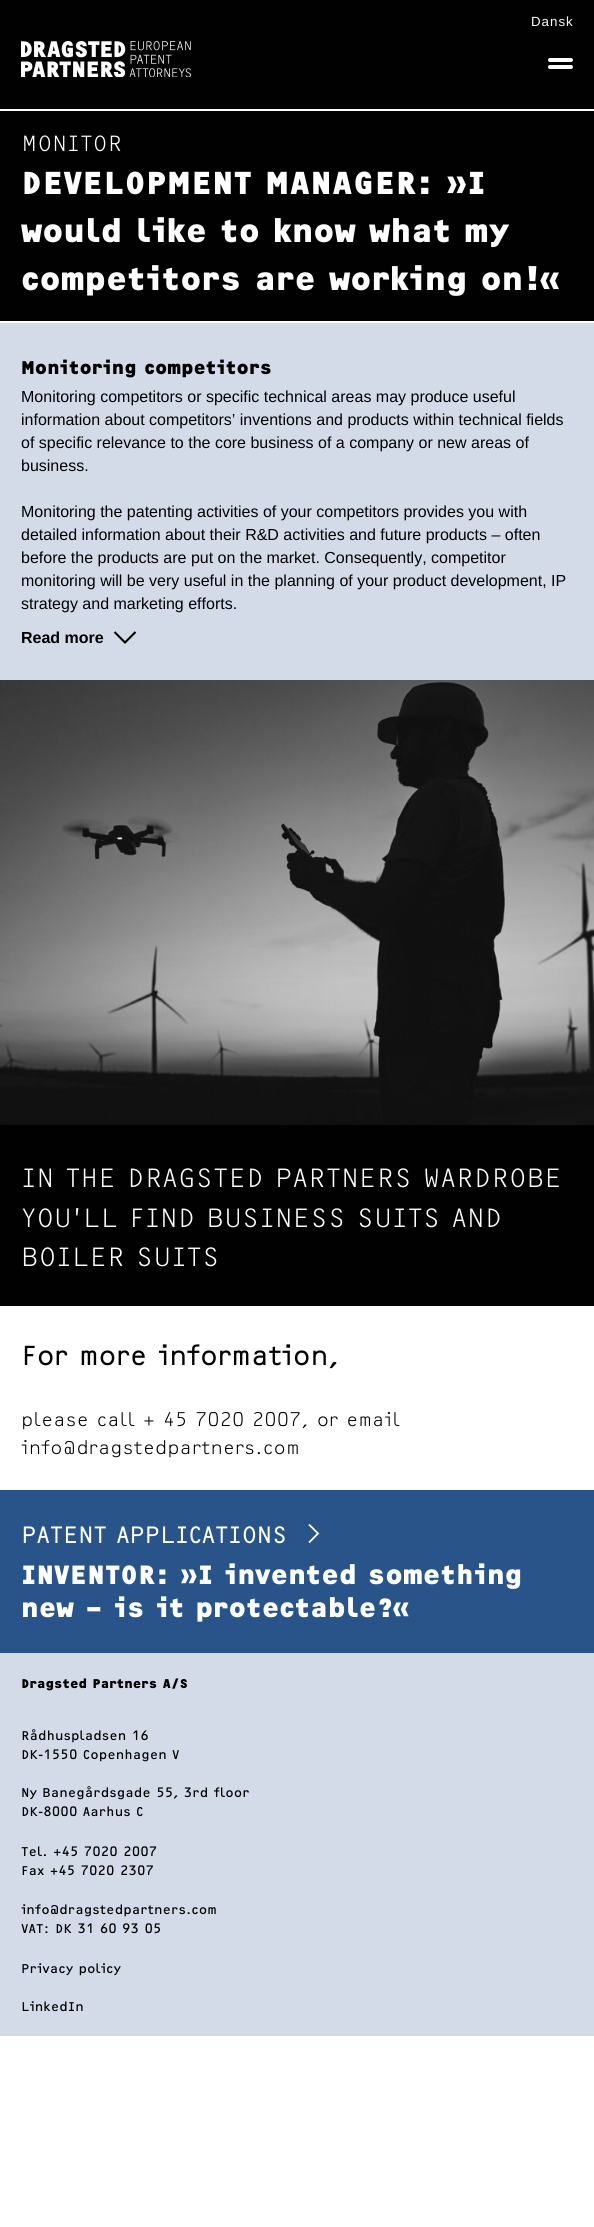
import math
import cairo

surface = cairo.ImageSurface(cairo.FORMAT_RGB24, 594, 2227)
ctx = cairo.Context(surface)
options = cairo.FontOptions()
options.set_hint_metrics(cairo.HINT_METRICS_OFF)
options.set_hint_style(cairo.HINT_STYLE_NONE)
ctx.set_font_options(options)
ctx.set_miter_limit(4)


def spaced_text(x, y, s, letter, word):
    ctx.move_to(x, y)
    for ch in s:
        ctx.show_text(ch)
        ctx.rel_move_to(letter + word * (ch == ' '), 0)


def round_rect(x, y, w, h, r):
    ctx.new_sub_path()
    for i, (u, v) in enumerate([(x + w - r, y + h - r), (x + r, y + h - r), (x + r, y + r), (x + w - r, y + r)]):
        ctx.arc(u, v, r, i * math.pi / 2, (i + 1) * math.pi / 2)
    ctx.close_path()


def picture(path, x, y, w, h):
    ctx.save()
    ctx.set_source_surface(cairo.ImageSurface.create_from_png(path), x, y)
    ctx.rectangle(x, y, w, h)
    ctx.fill()
    ctx.restore()


ctx.set_source_rgb(1, 1, 1)
ctx.paint()
ctx.set_source_rgb(0.004, 0.004, 0.004)
ctx.rectangle(0, 0, 594, 109)
ctx.fill()
ctx.select_font_face("Liberation Sans")
ctx.set_font_size(13.3)
ctx.set_source_rgb(0.996, 0.996, 0.996)
spaced_text(531, 26, "Dansk", 1, 0)
picture("img1.png", 21, 41, 170, 36)
round_rect(548, 58, 25, 4, 2)
ctx.fill()
round_rect(548, 65, 25, 4, 2)
ctx.fill()
ctx.set_source_rgb(0.004, 0.004, 0.004)
ctx.rectangle(0, 111, 594, 210)
ctx.fill()
ctx.select_font_face("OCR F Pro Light")
ctx.set_font_size(23)
ctx.set_source_rgb(0.996, 0.996, 0.996)
ctx.move_to(21, 151)
ctx.show_text("MONITOR")
ctx.select_font_face("OCR F Pro", cairo.FONT_SLANT_NORMAL, cairo.FONT_WEIGHT_BOLD)
ctx.set_font_size(33.2)
ctx.move_to(21, 194)
ctx.show_text("DEVELOPMENT MANAGER: »I")
ctx.move_to(21, 242)
ctx.show_text("would like to know what my")
ctx.move_to(21, 290)
ctx.show_text("competitors are working on!«")
ctx.set_source_rgb(0.831, 0.859, 0.91)
ctx.rectangle(0, 323, 594, 357)
ctx.fill()
ctx.set_font_size(19.25)
ctx.set_source_rgb(0.004, 0.004, 0.004)
ctx.move_to(21, 374)
ctx.show_text("Monitoring competitors")
ctx.select_font_face("Liberation Sans")
ctx.set_font_size(16)
ctx.move_to(21, 402)
ctx.show_text("Monitoring competitors or specific technical areas may produce useful")
ctx.move_to(21, 425)
ctx.show_text("information about competitors’ inventions and products within technical fields")
ctx.move_to(21, 448)
ctx.show_text("of specific relevance to the core business of a company or new areas of")
ctx.move_to(21, 471)
ctx.show_text("business.")
ctx.move_to(21, 517)
ctx.show_text("Monitoring the patenting activities of your competitors provides you with")
ctx.move_to(21, 540)
ctx.show_text("detailed information about their R&D activities and future products – often")
ctx.move_to(21, 563)
ctx.show_text("before the products are put on the market. Consequently, competitor")
ctx.move_to(21, 586)
ctx.show_text("monitoring will be very useful in the planning of your product development, IP")
ctx.move_to(21, 609)
ctx.show_text("strategy and marketing efforts.")
ctx.select_font_face("Liberation Sans", cairo.FONT_SLANT_NORMAL, cairo.FONT_WEIGHT_BOLD)
ctx.move_to(21, 643)
ctx.show_text("Read more")
ctx.new_path()
ctx.move_to(135.5, 632)
ctx.line_to(125, 642.5)
ctx.line_to(114.5, 632)
ctx.set_line_width(2.1)
ctx.stroke()
picture("img2.png", 0, 680, 594, 445)
ctx.rectangle(0, 1125, 594, 181)
ctx.fill()
ctx.select_font_face("OCR F Pro Light")
ctx.set_font_size(27.6)
ctx.set_source_rgb(0.996, 0.996, 0.996)
ctx.move_to(21, 1187)
ctx.show_text("IN THE DRAGSTED PARTNERS WARDROBE")
ctx.move_to(21, 1227)
ctx.show_text("YOU’LL FIND BUSINESS SUITS AND")
ctx.move_to(21, 1266)
ctx.show_text("BOILER SUITS")
ctx.select_font_face("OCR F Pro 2", cairo.FONT_SLANT_NORMAL, cairo.FONT_WEIGHT_BOLD)
ctx.set_source_rgb(0.004, 0.004, 0.004)
ctx.move_to(21, 1365)
ctx.show_text("For more information,")
ctx.select_font_face("OCR F Pro Light")
ctx.set_font_size(19.25)
ctx.move_to(21, 1426)
ctx.show_text("please call + 45 7020 2007, or email")
ctx.move_to(21, 1454)
ctx.show_text("info@dragstedpartners.com")
ctx.set_source_rgb(0.161, 0.329, 0.541)
ctx.rectangle(0, 1490, 594, 163)
ctx.fill()
ctx.select_font_face("OCR F Pro 2", cairo.FONT_SLANT_NORMAL, cairo.FONT_WEIGHT_BOLD)
ctx.set_font_size(23.75)
ctx.set_source_rgb(0.996, 0.996, 0.996)
ctx.move_to(21, 1543)
ctx.show_text("PATENT APPLICATIONS")
ctx.new_path()
ctx.move_to(309, 1524.5)
ctx.line_to(318, 1533.5)
ctx.line_to(309, 1542.5)
ctx.set_line_width(1.8)
ctx.stroke()
ctx.select_font_face("OCR F Pro", cairo.FONT_SLANT_NORMAL, cairo.FONT_WEIGHT_BOLD)
ctx.set_font_size(27.6)
ctx.move_to(21, 1584)
ctx.show_text("INVENTOR: »I invented something")
ctx.move_to(21, 1617)
ctx.show_text("new – is it protectable?«")
ctx.set_source_rgb(0.831, 0.859, 0.91)
ctx.rectangle(0, 1653, 594, 383)
ctx.fill()
ctx.set_font_size(13.3)
ctx.set_source_rgb(0.004, 0.004, 0.004)
ctx.move_to(21, 1688)
ctx.show_text("Dragsted Partners A/S")
ctx.select_font_face("OCR F Pro")
ctx.move_to(21, 1740)
ctx.show_text("Rådhuspladsen 16")
ctx.move_to(21, 1759)
ctx.show_text("DK-1550 Copenhagen V")
ctx.move_to(21, 1797)
ctx.show_text("Ny Banegårdsgade 55, 3rd floor")
ctx.move_to(21, 1816)
ctx.show_text("DK-8000 Aarhus C")
ctx.move_to(21, 1856)
ctx.show_text("Tel. +45 7020 2007")
ctx.move_to(21, 1875)
ctx.show_text("Fax +45 7020 2307")
ctx.move_to(21, 1914)
ctx.show_text("info@dragstedpartners.com")
ctx.move_to(21, 1933)
ctx.show_text("VAT: DK 31 60 93 05")
ctx.move_to(21, 1973)
ctx.show_text("Privacy policy")
ctx.move_to(21, 2011)
ctx.show_text("LinkedIn")
surface.write_to_png("page.png")
